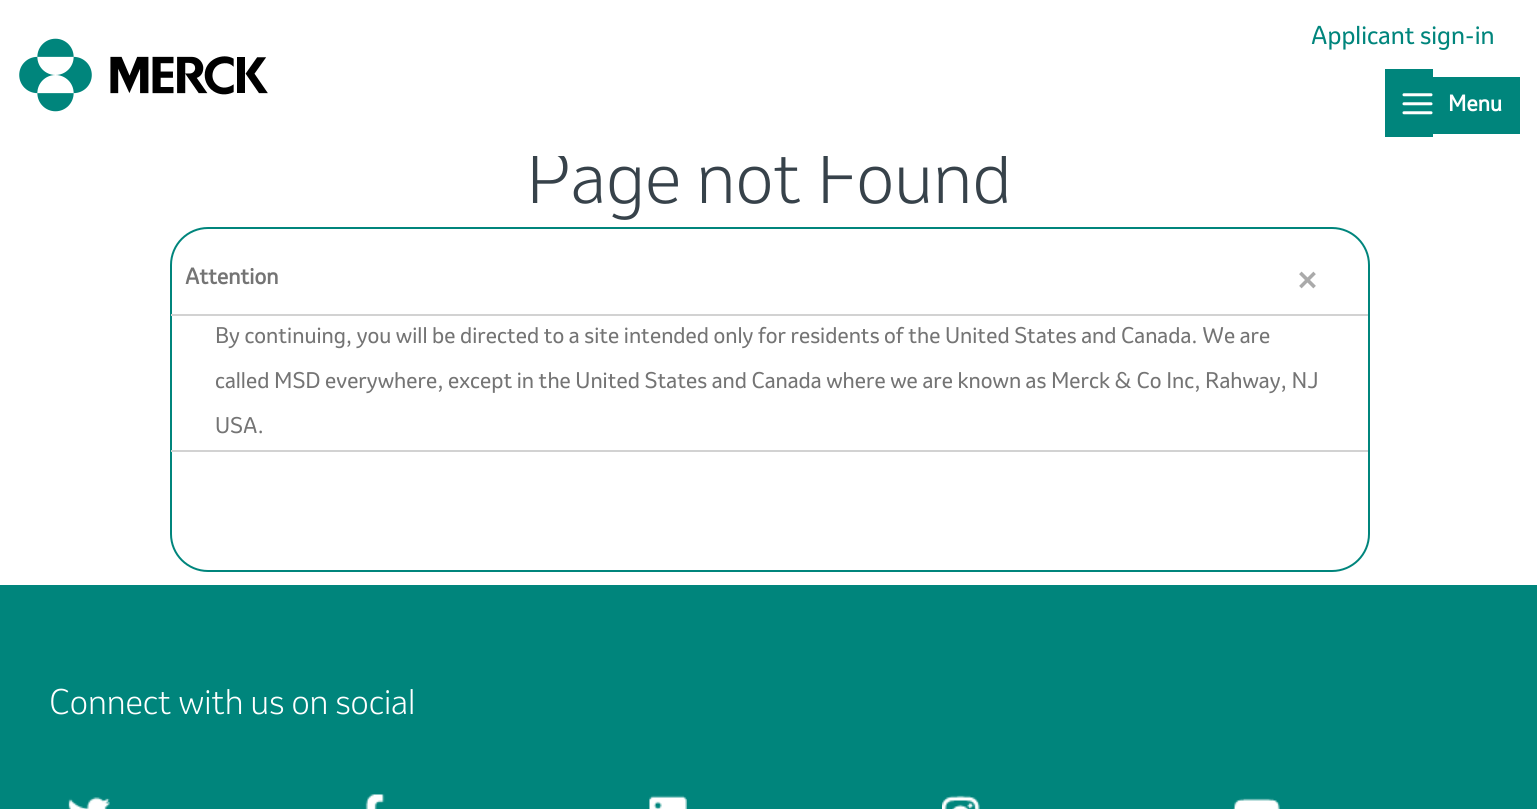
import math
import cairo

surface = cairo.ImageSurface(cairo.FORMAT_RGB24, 1537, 809)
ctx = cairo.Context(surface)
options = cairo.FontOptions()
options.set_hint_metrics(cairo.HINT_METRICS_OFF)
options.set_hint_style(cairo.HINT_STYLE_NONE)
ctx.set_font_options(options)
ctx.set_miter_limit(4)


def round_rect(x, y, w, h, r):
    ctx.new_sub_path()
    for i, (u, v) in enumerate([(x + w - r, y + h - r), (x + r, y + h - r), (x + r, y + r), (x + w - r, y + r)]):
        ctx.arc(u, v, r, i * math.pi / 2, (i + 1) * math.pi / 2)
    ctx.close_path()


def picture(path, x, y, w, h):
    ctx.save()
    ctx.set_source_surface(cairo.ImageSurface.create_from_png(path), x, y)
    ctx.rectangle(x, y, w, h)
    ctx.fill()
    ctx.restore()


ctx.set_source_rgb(1, 1, 1)
ctx.paint()
ctx.select_font_face("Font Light")
ctx.set_font_size(69)
ctx.set_source_rgb(0.216, 0.259, 0.29)
ctx.move_to(526, 203)
ctx.show_text("Page not Found")
ctx.set_source_rgb(1, 1, 1)
ctx.rectangle(532, 150, 474, 6)
ctx.fill()
ctx.select_font_face("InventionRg")
ctx.set_font_size(24)
ctx.set_source_rgb(0, 0.522, 0.486)
ctx.move_to(1311, 44)
ctx.show_text("Applicant sign-in")
picture("img1.png", 19, 38, 249, 74)
ctx.rectangle(1385, 69, 48, 68)
ctx.fill()
picture("img2.png", 1402, 93, 31, 22)
ctx.rectangle(1433, 77, 87, 57)
ctx.fill()
ctx.select_font_face("InventionRg", cairo.FONT_SLANT_NORMAL, cairo.FONT_WEIGHT_BOLD)
ctx.set_font_size(21)
ctx.set_source_rgb(1, 1, 1)
ctx.move_to(1448, 111)
ctx.show_text("Menu")
ctx.set_source_rgb(0, 0.522, 0.486)
ctx.rectangle(0, 585, 1537, 224)
ctx.fill()
ctx.select_font_face("Font Light")
ctx.set_font_size(33)
ctx.set_source_rgb(1, 1, 1)
ctx.move_to(49, 714)
ctx.show_text("Connect with us on social")
picture("img3.png", 68, 797, 42, 12)
picture("img4.png", 365, 794, 20, 15)
picture("img5.png", 649, 795, 38, 14)
picture("img6.png", 942, 795, 38, 14)
picture("img7.png", 1233, 798, 47, 11)
round_rect(171, 228, 1198, 343, 37)
ctx.set_source_rgb(0, 0.522, 0.486)
ctx.stroke()
ctx.set_source_rgb(0.824, 0.824, 0.824)
ctx.rectangle(171, 314, 1197, 2)
ctx.fill()
ctx.select_font_face("InventionRg", cairo.FONT_SLANT_NORMAL, cairo.FONT_WEIGHT_BOLD)
ctx.set_font_size(21)
ctx.set_source_rgb(0.455, 0.455, 0.455)
ctx.move_to(185, 284)
ctx.show_text("Attention")
ctx.select_font_face("InventionRg")
ctx.set_font_size(45)
ctx.set_source_rgb(0.667, 0.667, 0.667)
ctx.move_to(1293, 297)
ctx.show_text("×")
ctx.set_font_size(21)
ctx.set_source_rgb(0.455, 0.455, 0.455)
ctx.move_to(215, 343)
ctx.show_text("By continuing, you will be directed to a site intended only for residents of the United States and Canada. We are")
ctx.move_to(215, 388)
ctx.show_text("called MSD everywhere, except in the United States and Canada where we are known as Merck & Co Inc, Rahway, NJ")
ctx.move_to(215, 433)
ctx.show_text("USA.")
ctx.set_source_rgb(0.824, 0.824, 0.824)
ctx.rectangle(171, 450, 1197, 2)
ctx.fill()
surface.write_to_png("page.png")
